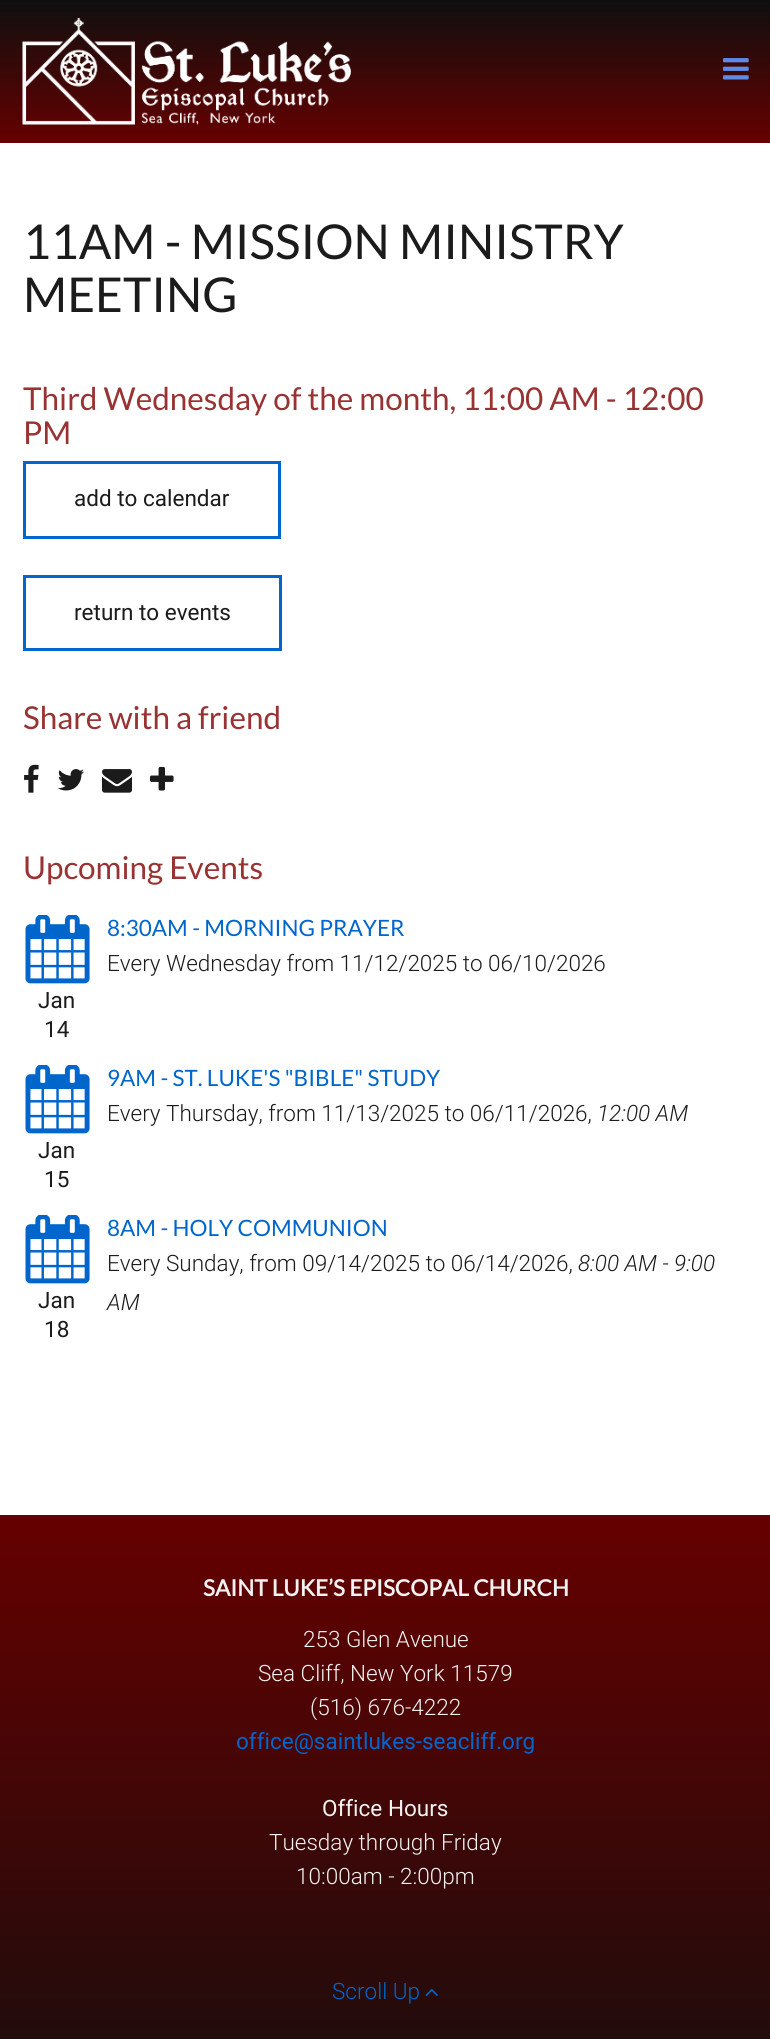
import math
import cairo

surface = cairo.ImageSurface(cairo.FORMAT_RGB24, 770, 2039)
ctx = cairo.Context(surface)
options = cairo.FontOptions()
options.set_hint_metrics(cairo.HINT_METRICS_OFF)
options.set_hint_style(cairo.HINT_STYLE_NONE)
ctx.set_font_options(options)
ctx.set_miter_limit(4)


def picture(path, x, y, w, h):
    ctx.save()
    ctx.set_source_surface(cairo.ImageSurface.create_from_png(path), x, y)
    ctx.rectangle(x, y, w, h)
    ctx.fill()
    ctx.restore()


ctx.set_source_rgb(1, 1, 1)
ctx.paint()
gradient = cairo.LinearGradient(386, 0, 386, 143)
gradient.add_color_stop_rgba(0, 0.059, 0.059, 0.059, 1)
gradient.add_color_stop_rgba(1, 0.4, 0, 0, 1)
ctx.set_source(gradient)
ctx.rectangle(0, 0, 770, 143)
ctx.fill()
picture("img1.png", 22, 18, 329, 107)
picture("img2.png", 723, 58, 26, 22)
ctx.select_font_face("Lato")
ctx.set_font_size(48)
ctx.set_source_rgb(0.11, 0.106, 0.106)
ctx.move_to(23, 259)
ctx.show_text("11AM - MISSION MINISTRY")
ctx.move_to(23, 312)
ctx.show_text("MEETING")
ctx.set_font_size(31.5)
ctx.set_source_rgb(0.6, 0.2, 0.2)
ctx.move_to(23, 410)
ctx.show_text("Third Wednesday of the month, 11:00 AM - 12:00")
ctx.move_to(23, 444)
ctx.show_text("PM")
ctx.rectangle(24.5, 462.5, 255, 75)
ctx.set_source_rgb(0, 0.4, 0.8)
ctx.set_line_width(3)
ctx.stroke()
ctx.select_font_face("Roboto")
ctx.set_font_size(22.5)
ctx.set_source_rgb(0.11, 0.106, 0.106)
ctx.move_to(74, 506)
ctx.show_text("add to calendar")
ctx.rectangle(24.5, 576.5, 256, 73)
ctx.set_source_rgb(0, 0.4, 0.8)
ctx.stroke()
ctx.set_source_rgb(0.11, 0.106, 0.106)
ctx.move_to(74, 620)
ctx.show_text("return to events")
ctx.select_font_face("Lato")
ctx.set_font_size(31.5)
ctx.set_source_rgb(0.6, 0.2, 0.2)
ctx.move_to(23, 729)
ctx.show_text("Share with a friend")
picture("img3.png", 24, 764, 15, 29)
picture("img4.png", 58, 769, 26, 22)
picture("img5.png", 102, 769, 30, 24)
picture("img6.png", 150, 766, 24, 25)
ctx.move_to(23, 879)
ctx.show_text("Upcoming Events")
ctx.set_font_size(22.5)
ctx.set_source_rgb(0, 0.4, 0.8)
ctx.move_to(107, 936)
ctx.show_text("8:30AM - MORNING PRAYER")
ctx.select_font_face("Roboto Light")
ctx.set_source_rgb(0.11, 0.106, 0.106)
ctx.move_to(107, 971)
ctx.show_text("Every Wednesday from 11/12/2025 to 06/10/2026")
picture("img7.png", 25, 915, 65, 69)
ctx.select_font_face("Roboto")
ctx.move_to(38, 1008)
ctx.show_text("Jan")
ctx.move_to(44, 1037)
ctx.show_text("14")
ctx.select_font_face("Lato")
ctx.set_source_rgb(0, 0.4, 0.8)
ctx.move_to(107, 1086)
ctx.show_text("9AM - ST. LUKE'S \"BIBLE\" STUDY")
ctx.select_font_face("Roboto Light")
ctx.set_source_rgb(0.11, 0.106, 0.106)
ctx.move_to(107, 1121)
ctx.show_text("Every Thursday, from 11/13/2025 to 06/11/2026,")
ctx.select_font_face("Roboto Light", cairo.FONT_SLANT_ITALIC)
ctx.move_to(597, 1121)
ctx.show_text("12:00 AM")
picture("img7.png", 25, 1065, 65, 69)
ctx.select_font_face("Roboto")
ctx.move_to(38, 1158)
ctx.show_text("Jan")
ctx.move_to(44, 1187)
ctx.show_text("15")
ctx.select_font_face("Lato")
ctx.set_source_rgb(0, 0.4, 0.8)
ctx.move_to(107, 1236)
ctx.show_text("8AM - HOLY COMMUNION")
ctx.select_font_face("Roboto Light")
ctx.set_source_rgb(0.11, 0.106, 0.106)
ctx.move_to(107, 1271)
ctx.show_text("Every Sunday, from 09/14/2025 to 06/14/2026,")
ctx.select_font_face("Roboto Light", cairo.FONT_SLANT_ITALIC)
ctx.move_to(578, 1271)
ctx.show_text("8:00 AM - 9:00")
ctx.move_to(107, 1310)
ctx.show_text("AM")
picture("img7.png", 25, 1215, 65, 69)
ctx.select_font_face("Roboto")
ctx.move_to(38, 1308)
ctx.show_text("Jan")
ctx.move_to(44, 1337)
ctx.show_text("18")
gradient = cairo.LinearGradient(386, 1515, 386, 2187)
gradient.add_color_stop_rgba(0, 0.4, 0, 0, 1)
gradient.add_color_stop_rgba(1, 0.059, 0.059, 0.059, 1)
ctx.set_source(gradient)
ctx.rectangle(0, 1515, 770, 524)
ctx.fill()
ctx.select_font_face("Lato", cairo.FONT_SLANT_NORMAL, cairo.FONT_WEIGHT_BOLD)
ctx.set_source_rgb(0.949, 0.949, 0.949)
ctx.move_to(203, 1596)
ctx.show_text("SAINT LUKE’S EPISCOPAL CHURCH")
ctx.select_font_face("Roboto Light")
ctx.move_to(303, 1647)
ctx.show_text("253 Glen Avenue")
ctx.move_to(258, 1681)
ctx.show_text("Sea Cliff, New York 11579")
ctx.move_to(310, 1715)
ctx.show_text("(516) 676-4222")
ctx.select_font_face("Roboto")
ctx.set_source_rgb(0, 0.4, 0.8)
ctx.move_to(236, 1749)
ctx.show_text("office@saintlukes-seacliff.org")
ctx.set_source_rgb(0.949, 0.949, 0.949)
ctx.move_to(322, 1816)
ctx.show_text("Office Hours")
ctx.select_font_face("Roboto Light")
ctx.move_to(269, 1850)
ctx.show_text("Tuesday through Friday")
ctx.move_to(296, 1884)
ctx.show_text("10:00am - 2:00pm")
ctx.set_source_rgb(0, 0.4, 0.8)
ctx.move_to(332, 1999)
ctx.show_text("Scroll Up")
picture("img8.png", 425, 1988, 13, 9)
surface.write_to_png("page.png")
